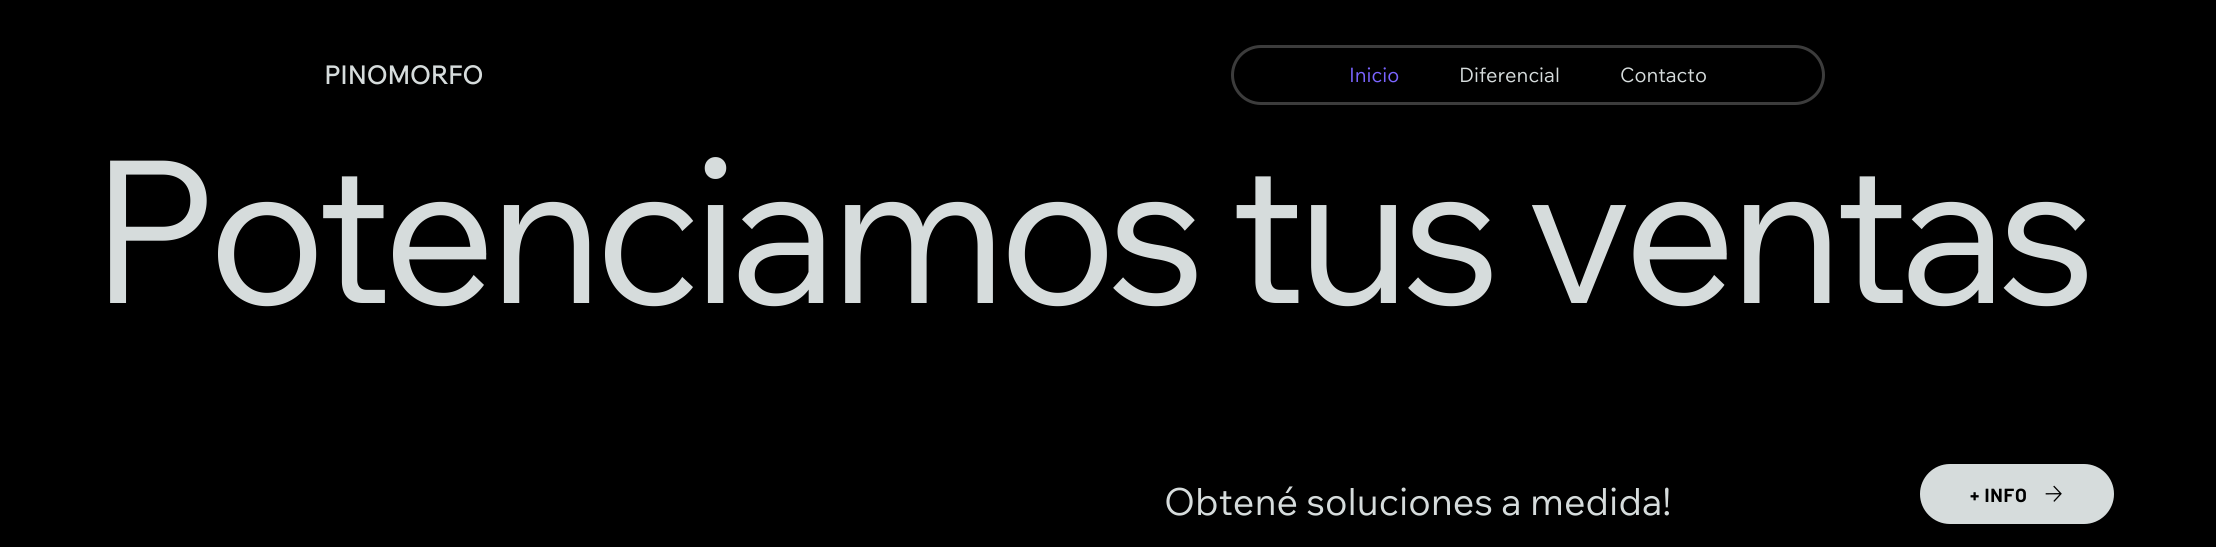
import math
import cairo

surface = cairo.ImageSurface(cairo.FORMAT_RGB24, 2216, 547)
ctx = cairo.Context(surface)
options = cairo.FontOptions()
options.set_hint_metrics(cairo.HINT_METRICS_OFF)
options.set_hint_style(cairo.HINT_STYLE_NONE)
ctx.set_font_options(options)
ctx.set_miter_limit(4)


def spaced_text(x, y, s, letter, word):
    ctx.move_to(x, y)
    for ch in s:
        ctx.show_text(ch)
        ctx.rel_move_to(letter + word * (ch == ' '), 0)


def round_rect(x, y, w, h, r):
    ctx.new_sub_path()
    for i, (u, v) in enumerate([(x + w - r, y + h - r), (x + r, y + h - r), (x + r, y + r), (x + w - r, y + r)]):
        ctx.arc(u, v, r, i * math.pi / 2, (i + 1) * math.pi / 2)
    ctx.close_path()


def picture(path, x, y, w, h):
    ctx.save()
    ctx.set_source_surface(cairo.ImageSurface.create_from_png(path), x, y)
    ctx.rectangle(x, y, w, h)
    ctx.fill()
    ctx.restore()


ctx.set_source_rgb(0, 0, 0)
ctx.paint()
ctx.select_font_face("Wix Madefor Text", cairo.FONT_SLANT_NORMAL, cairo.FONT_WEIGHT_BOLD)
ctx.set_font_size(25)
ctx.set_source_rgb(0.839, 0.863, 0.863)
ctx.move_to(324, 84)
ctx.show_text("PINOMORFO")
round_rect(1232.5, 46.5, 591, 57, 28.5)
ctx.set_source_rgb(0.235, 0.235, 0.235)
ctx.set_line_width(3)
ctx.stroke()
ctx.select_font_face("Wix Madefor Text")
ctx.set_font_size(20)
ctx.set_source_rgb(0.478, 0.392, 1)
ctx.move_to(1349, 82)
ctx.show_text("Inicio")
ctx.set_source_rgb(0.839, 0.863, 0.863)
ctx.move_to(1459, 82)
ctx.show_text("Diferencial")
ctx.move_to(1620, 82)
ctx.show_text("Contacto")
ctx.set_font_size(199.1)
spaced_text(89, 303, "Potenciamos tus ventas", -10, 0)
ctx.set_font_size(37.5)
ctx.move_to(1164, 515)
ctx.show_text("Obtené soluciones a medida!")
round_rect(1920, 464, 194, 60, 30)
ctx.fill()
ctx.select_font_face("Barlow", cairo.FONT_SLANT_NORMAL, cairo.FONT_WEIGHT_BOLD)
ctx.set_font_size(19)
ctx.set_source_rgb(0, 0, 0)
spaced_text(1970, 502, "+ INFO", 0.75, 0)
picture("img1.png", 2045, 485, 17, 17)
surface.write_to_png("page.png")
